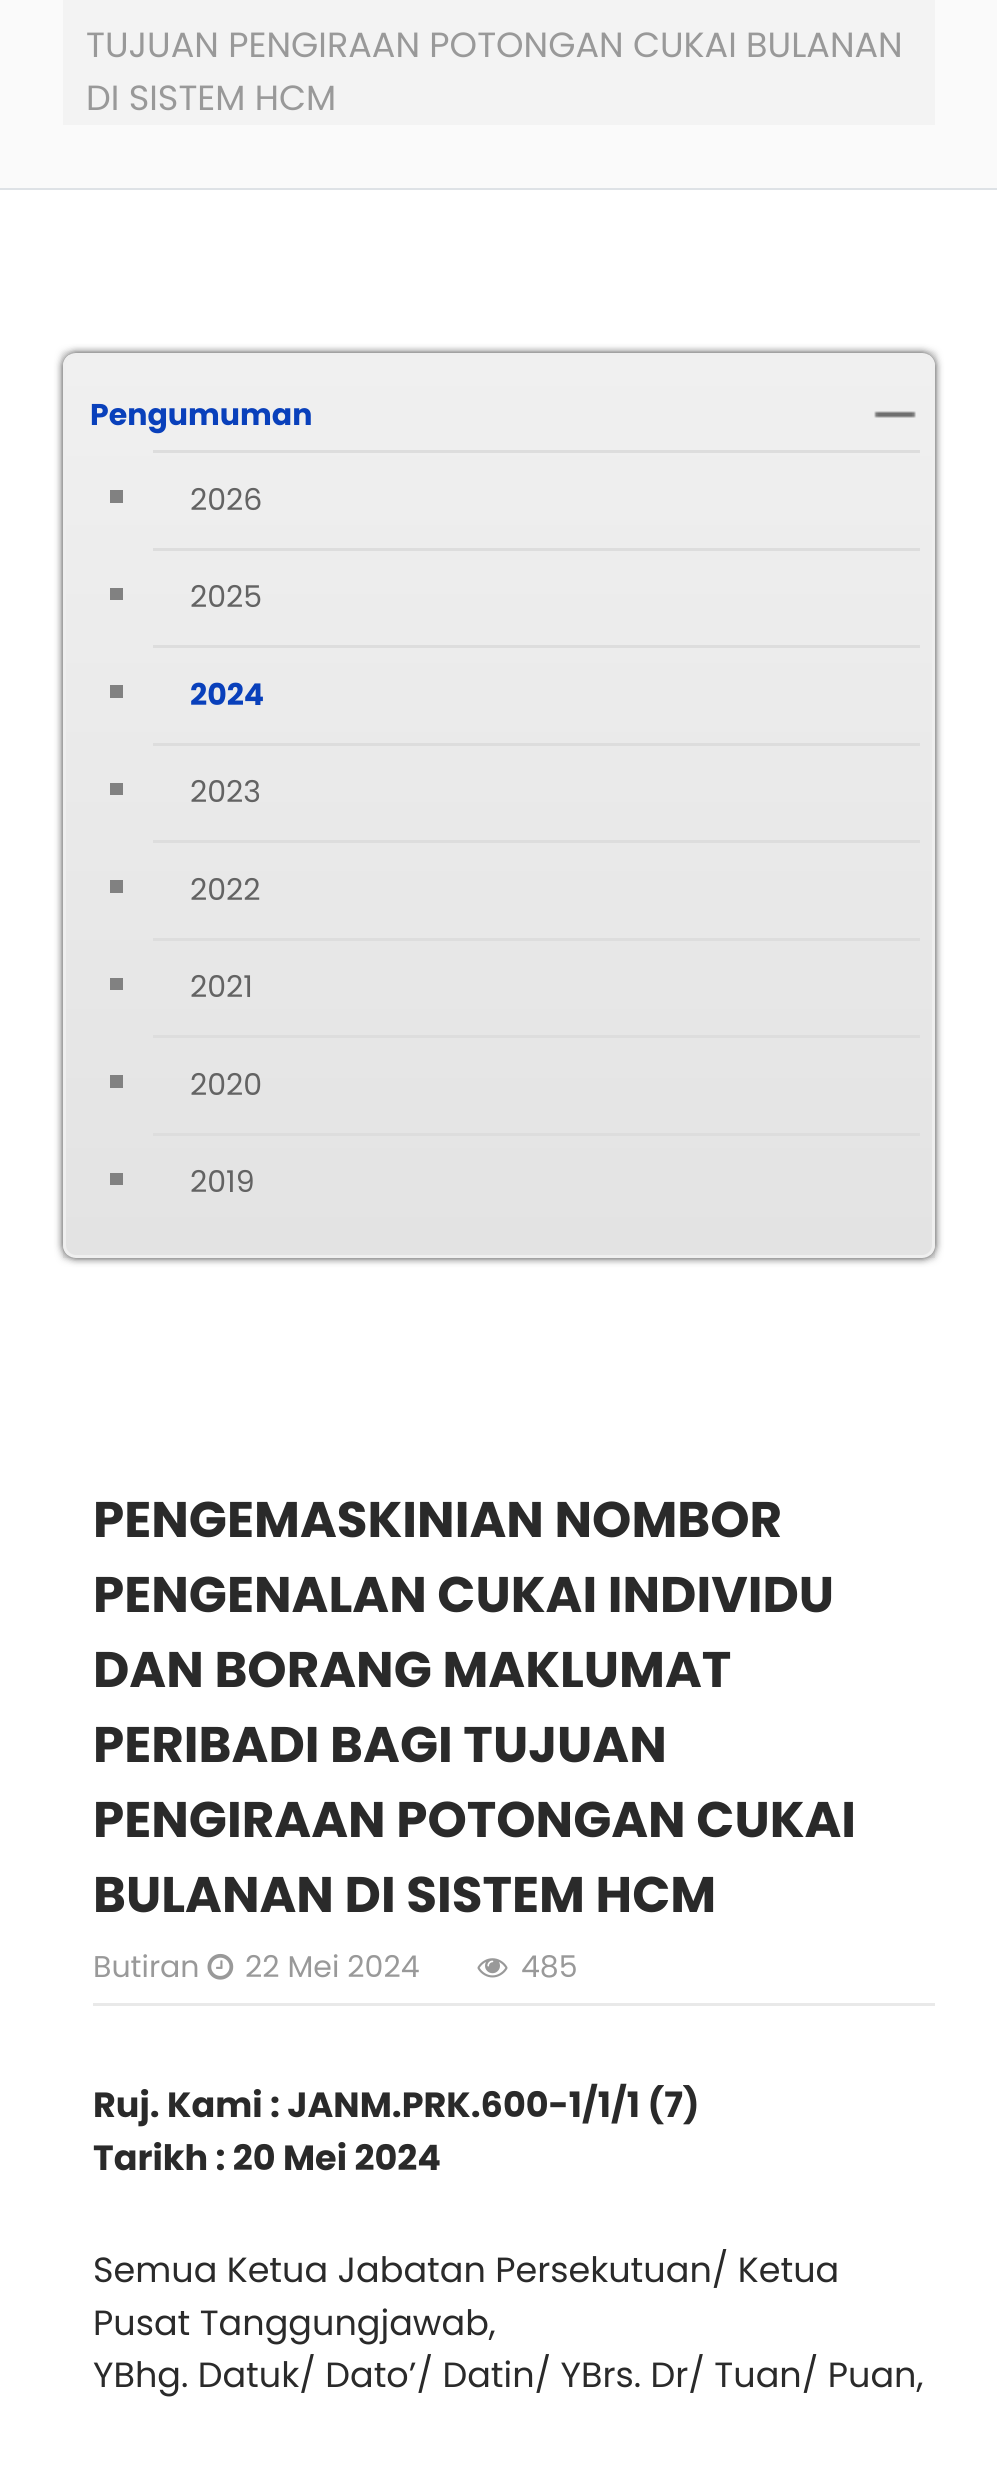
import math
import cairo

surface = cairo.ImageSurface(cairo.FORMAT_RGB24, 997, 2469)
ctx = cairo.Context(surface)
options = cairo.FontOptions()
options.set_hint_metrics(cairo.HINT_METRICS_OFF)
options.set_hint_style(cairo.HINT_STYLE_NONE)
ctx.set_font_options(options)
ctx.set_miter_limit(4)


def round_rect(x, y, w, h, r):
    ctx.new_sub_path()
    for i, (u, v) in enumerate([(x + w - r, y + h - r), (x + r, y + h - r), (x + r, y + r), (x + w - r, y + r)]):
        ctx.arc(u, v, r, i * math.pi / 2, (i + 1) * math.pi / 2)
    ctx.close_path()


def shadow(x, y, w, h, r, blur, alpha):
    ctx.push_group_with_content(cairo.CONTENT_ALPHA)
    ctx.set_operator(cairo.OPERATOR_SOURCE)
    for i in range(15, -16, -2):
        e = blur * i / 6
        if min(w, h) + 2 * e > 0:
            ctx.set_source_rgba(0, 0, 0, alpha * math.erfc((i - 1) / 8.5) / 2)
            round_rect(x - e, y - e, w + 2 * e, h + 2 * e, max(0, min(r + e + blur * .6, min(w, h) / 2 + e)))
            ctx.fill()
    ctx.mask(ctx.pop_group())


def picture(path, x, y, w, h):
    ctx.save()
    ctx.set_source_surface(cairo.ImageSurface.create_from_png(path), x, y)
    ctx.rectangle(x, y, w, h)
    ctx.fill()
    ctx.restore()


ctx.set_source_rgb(1, 1, 1)
ctx.paint()
ctx.set_source_rgb(0.98, 0.98, 0.98)
ctx.rectangle(0, 0, 997, 188)
ctx.fill()
ctx.set_source_rgb(0.871, 0.886, 0.902)
ctx.rectangle(0, 188, 997, 2)
ctx.fill()
ctx.set_source_rgb(0.953, 0.953, 0.953)
ctx.rectangle(63, 0, 872, 125)
ctx.fill()
ctx.select_font_face("Poppins")
ctx.set_font_size(35)
ctx.set_source_rgb(0.6, 0.6, 0.6)
ctx.move_to(86, 57)
ctx.show_text("TUJUAN PENGIRAAN POTONGAN CUKAI BULANAN")
ctx.move_to(86, 110)
ctx.show_text("DI SISTEM HCM")
ctx.set_source_rgb(0.867, 0.867, 0.867)
shadow(63, 353, 872, 905, 0, 4, 1)
gradient = cairo.LinearGradient(499, 352, 499, 1258)
gradient.add_color_stop_rgba(0, 0.941, 0.941, 0.941, 1)
gradient.add_color_stop_rgba(1, 0.89, 0.89, 0.89, 1)
ctx.set_source(gradient)
ctx.rectangle(63, 353, 872, 905)
ctx.fill()
ctx.set_source_rgb(0.267, 0.267, 0.267)
shadow(63, 353, 872, 905, 13, 4, 1)
ctx.save()
round_rect(63, 353, 872, 905, 13)
ctx.clip()
gradient = cairo.LinearGradient(499, 355, 499, 1255)
gradient.add_color_stop_rgba(0, 0.941, 0.941, 0.941, 1)
gradient.add_color_stop_rgba(1, 0.89, 0.89, 0.89, 1)
ctx.set_source(gradient)
ctx.rectangle(63, 355, 872, 900)
ctx.fill()
ctx.restore()
round_rect(64.5, 354.5, 869, 902, 11.5)
ctx.set_source_rgb(0.937, 0.937, 0.937)
ctx.set_line_width(3)
ctx.stroke()
ctx.select_font_face("Poppins", cairo.FONT_SLANT_NORMAL, cairo.FONT_WEIGHT_BOLD)
ctx.set_font_size(30)
ctx.set_source_rgb(0.039, 0.251, 0.733)
ctx.move_to(90, 425)
ctx.show_text("Pengumuman")
picture("img1.png", 874, 411, 42, 7)
ctx.set_source_rgb(0.867, 0.867, 0.867)
ctx.rectangle(153, 450, 767, 3)
ctx.fill()
ctx.set_source_rgb(0.506, 0.506, 0.506)
ctx.rectangle(110, 490, 13, 13)
ctx.fill()
ctx.select_font_face("Poppins")
ctx.set_source_rgb(0.388, 0.388, 0.388)
ctx.move_to(190, 510)
ctx.show_text("2026")
ctx.set_source_rgb(0.867, 0.867, 0.867)
ctx.rectangle(153, 548, 767, 3)
ctx.fill()
ctx.set_source_rgb(0.506, 0.506, 0.506)
ctx.rectangle(110, 588, 13, 12)
ctx.fill()
ctx.set_source_rgb(0.388, 0.388, 0.388)
ctx.move_to(190, 607)
ctx.show_text("2025")
ctx.set_source_rgb(0.867, 0.867, 0.867)
ctx.rectangle(153, 645, 767, 3)
ctx.fill()
ctx.set_source_rgb(0.506, 0.506, 0.506)
ctx.rectangle(110, 685, 13, 13)
ctx.fill()
ctx.select_font_face("Poppins", cairo.FONT_SLANT_NORMAL, cairo.FONT_WEIGHT_BOLD)
ctx.set_source_rgb(0.039, 0.251, 0.733)
ctx.move_to(190, 705)
ctx.show_text("2024")
ctx.set_source_rgb(0.867, 0.867, 0.867)
ctx.rectangle(153, 743, 767, 3)
ctx.fill()
ctx.set_source_rgb(0.506, 0.506, 0.506)
ctx.rectangle(110, 783, 13, 12)
ctx.fill()
ctx.select_font_face("Poppins")
ctx.set_source_rgb(0.388, 0.388, 0.388)
ctx.move_to(190, 802)
ctx.show_text("2023")
ctx.set_source_rgb(0.867, 0.867, 0.867)
ctx.rectangle(153, 840, 767, 3)
ctx.fill()
ctx.set_source_rgb(0.506, 0.506, 0.506)
ctx.rectangle(110, 880, 13, 13)
ctx.fill()
ctx.set_source_rgb(0.388, 0.388, 0.388)
ctx.move_to(190, 900)
ctx.show_text("2022")
ctx.set_source_rgb(0.867, 0.867, 0.867)
ctx.rectangle(153, 938, 767, 3)
ctx.fill()
ctx.set_source_rgb(0.506, 0.506, 0.506)
ctx.rectangle(110, 978, 13, 12)
ctx.fill()
ctx.set_source_rgb(0.388, 0.388, 0.388)
ctx.move_to(190, 997)
ctx.show_text("2021")
ctx.set_source_rgb(0.867, 0.867, 0.867)
ctx.rectangle(153, 1035, 767, 3)
ctx.fill()
ctx.set_source_rgb(0.506, 0.506, 0.506)
ctx.rectangle(110, 1075, 13, 13)
ctx.fill()
ctx.set_source_rgb(0.388, 0.388, 0.388)
ctx.move_to(190, 1095)
ctx.show_text("2020")
ctx.set_source_rgb(0.867, 0.867, 0.867)
ctx.rectangle(153, 1133, 767, 3)
ctx.fill()
ctx.set_source_rgb(0.506, 0.506, 0.506)
ctx.rectangle(110, 1173, 13, 12)
ctx.fill()
ctx.set_source_rgb(0.388, 0.388, 0.388)
ctx.move_to(190, 1192)
ctx.show_text("2019")
ctx.set_source_rgb(0.914, 0.914, 0.914)
ctx.rectangle(93, 2003, 842, 3)
ctx.fill()
ctx.select_font_face("Poppins", cairo.FONT_SLANT_NORMAL, cairo.FONT_WEIGHT_BOLD)
ctx.set_font_size(50)
ctx.set_source_rgb(0.165, 0.165, 0.165)
ctx.move_to(93, 1537)
ctx.show_text("PENGEMASKINIAN NOMBOR")
ctx.move_to(93, 1612)
ctx.show_text("PENGENALAN CUKAI INDIVIDU")
ctx.move_to(93, 1687)
ctx.show_text("DAN BORANG MAKLUMAT")
ctx.move_to(93, 1762)
ctx.show_text("PERIBADI BAGI TUJUAN")
ctx.move_to(93, 1837)
ctx.show_text("PENGIRAAN POTONGAN CUKAI")
ctx.move_to(93, 1912)
ctx.show_text("BULANAN DI SISTEM HCM")
ctx.select_font_face("Poppins")
ctx.set_font_size(30)
ctx.set_source_rgb(0.6, 0.6, 0.6)
ctx.move_to(93, 1977)
ctx.show_text("Butiran")
picture("img2.png", 207, 1953, 27, 27)
ctx.move_to(245, 1977)
ctx.show_text("22 Mei 2024")
picture("img3.png", 477, 1958, 31, 20)
ctx.move_to(521, 1977)
ctx.show_text("485")
ctx.select_font_face("Poppins", cairo.FONT_SLANT_NORMAL, cairo.FONT_WEIGHT_BOLD)
ctx.set_font_size(35)
ctx.set_source_rgb(0.165, 0.165, 0.165)
ctx.move_to(93, 2117)
ctx.show_text("Ruj. Kami : JANM.PRK.600-1/1/1 (7)")
ctx.move_to(93, 2170)
ctx.show_text("Tarikh : 20 Mei 2024")
ctx.select_font_face("Poppins")
ctx.move_to(93, 2282)
ctx.show_text("Semua Ketua Jabatan Persekutuan/ Ketua")
ctx.move_to(93, 2335)
ctx.show_text("Pusat Tanggungjawab,")
ctx.move_to(93, 2387)
ctx.show_text("YBhg. Datuk/ Dato’/ Datin/ YBrs. Dr/ Tuan/ Puan,")
surface.write_to_png("page.png")
